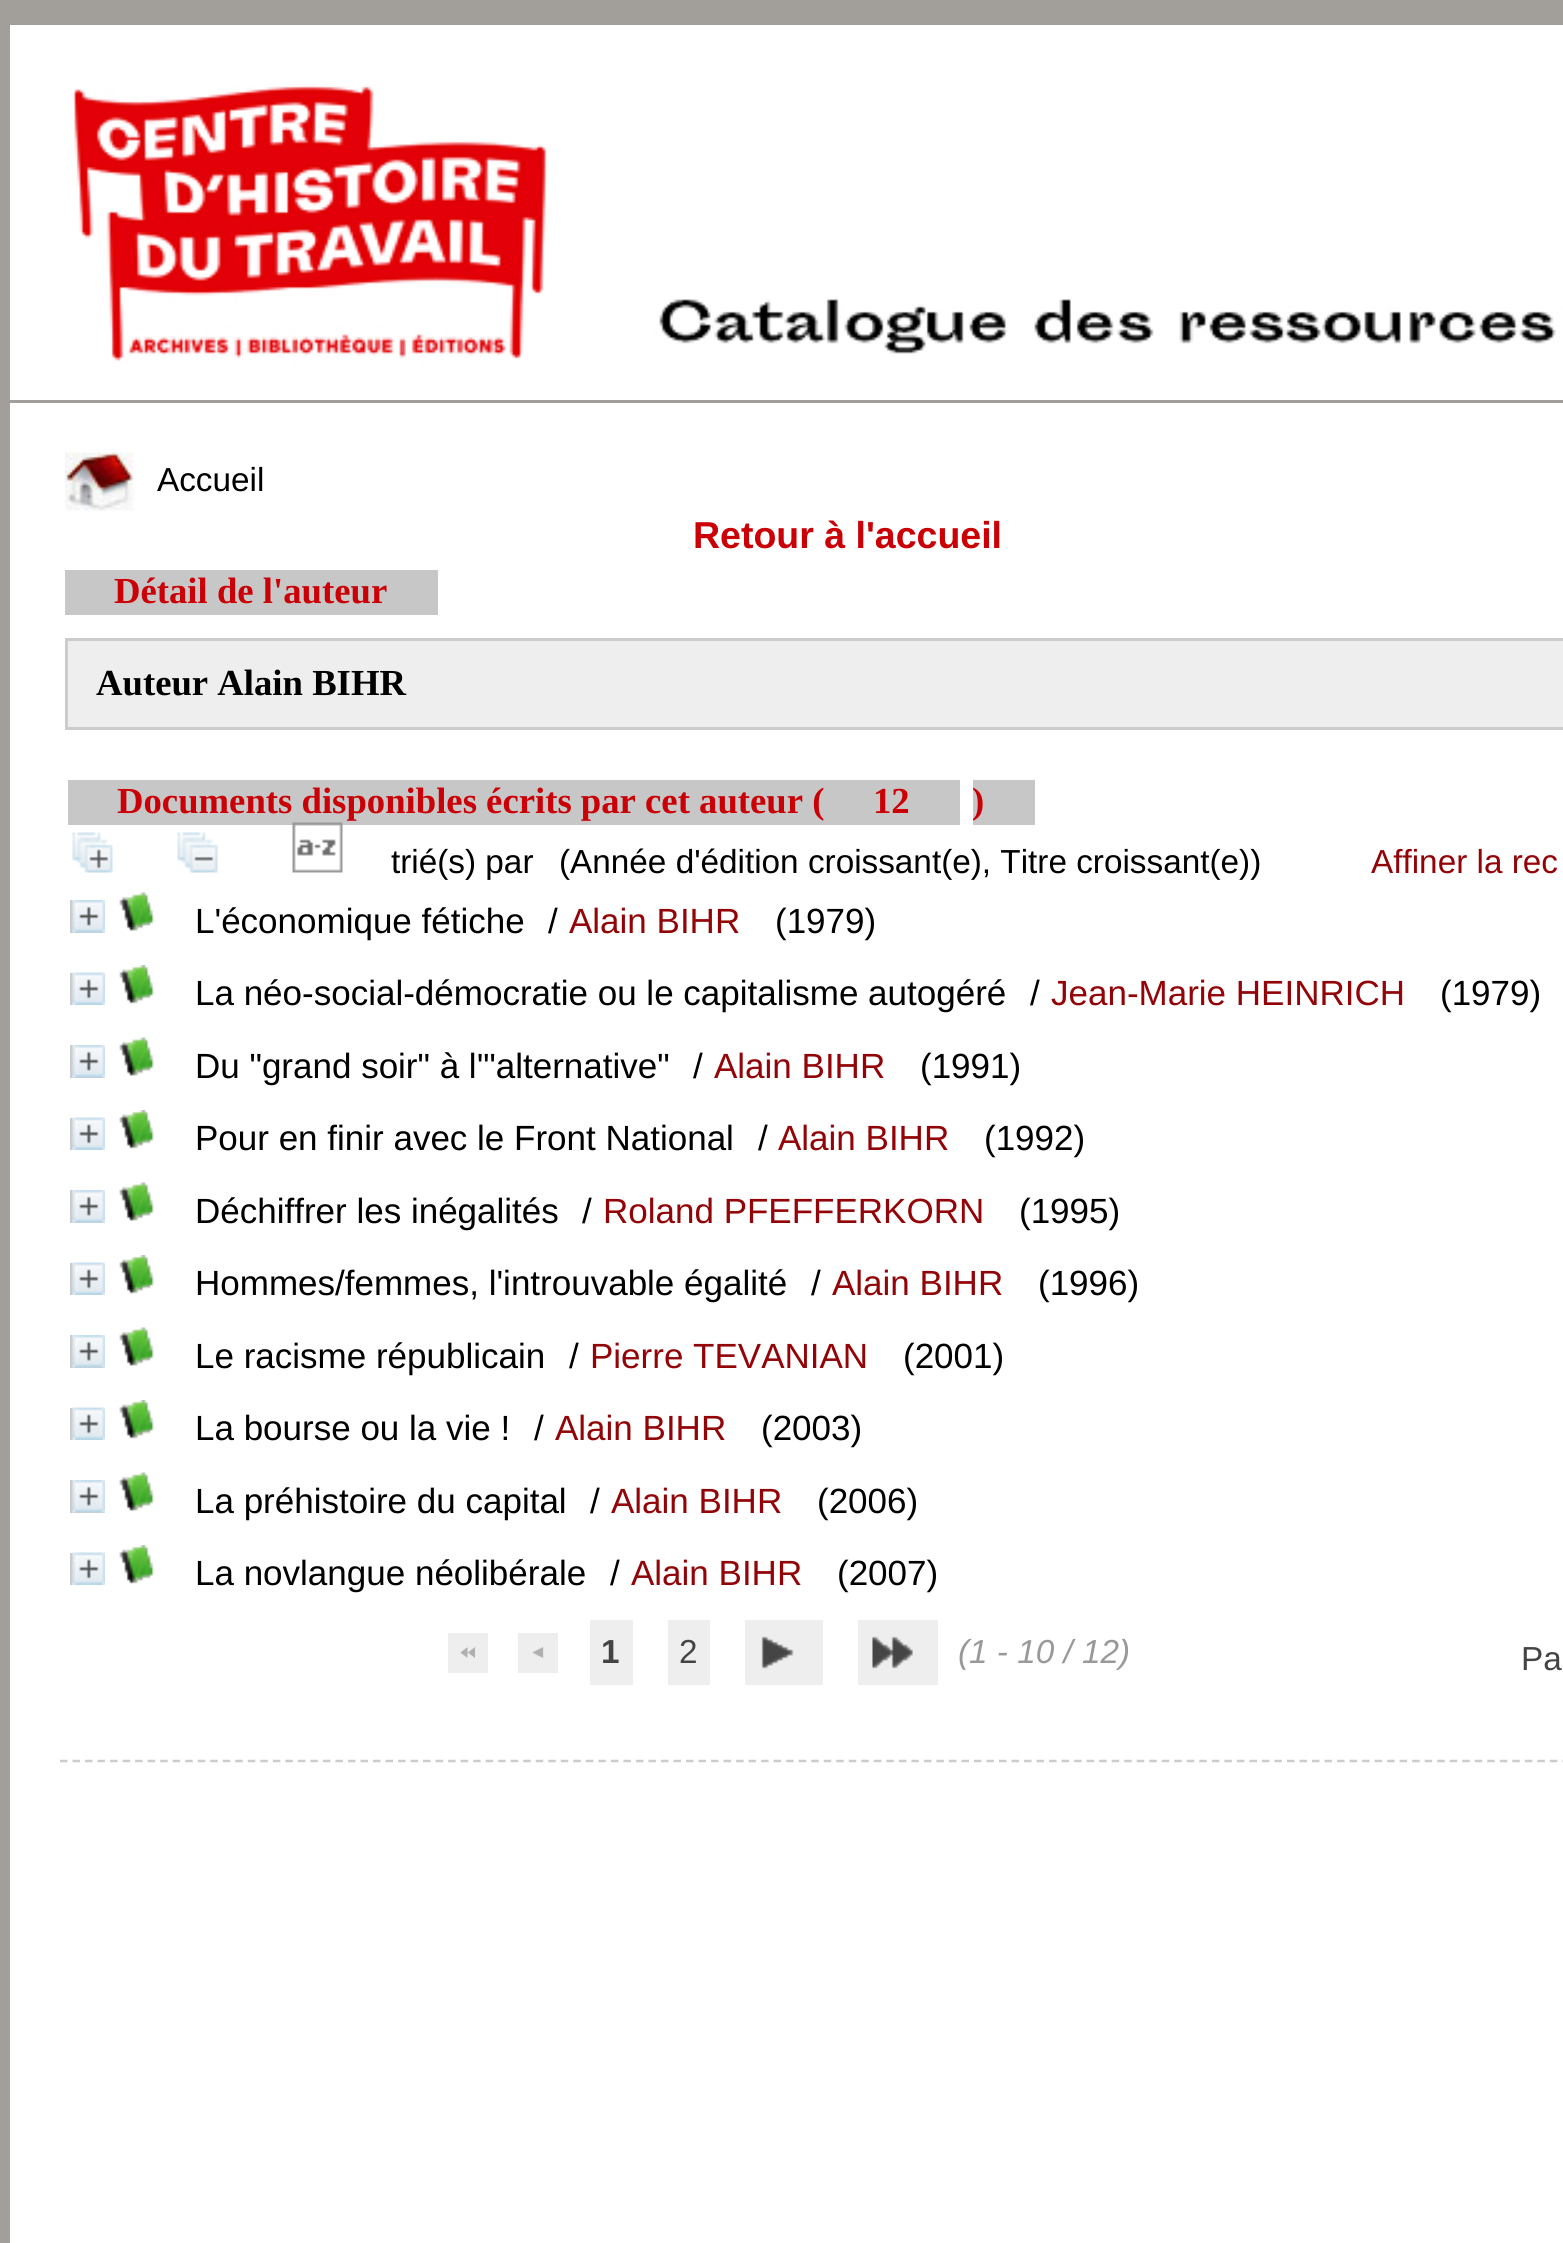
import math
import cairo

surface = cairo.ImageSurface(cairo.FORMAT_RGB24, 1563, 2243)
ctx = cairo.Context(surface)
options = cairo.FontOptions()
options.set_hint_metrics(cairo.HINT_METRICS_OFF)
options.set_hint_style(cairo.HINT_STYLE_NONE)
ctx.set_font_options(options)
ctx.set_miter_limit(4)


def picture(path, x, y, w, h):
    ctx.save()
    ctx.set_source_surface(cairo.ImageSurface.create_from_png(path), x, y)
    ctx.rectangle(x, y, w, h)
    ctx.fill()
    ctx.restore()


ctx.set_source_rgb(0.635, 0.62, 0.604)
ctx.paint()
picture("img1.png", 10, 25, 1553, 375)
ctx.set_source_rgb(1, 1, 1)
ctx.rectangle(10, 403, 1553, 1840)
ctx.fill()
picture("img2.png", 65, 452, 70, 60)
ctx.select_font_face("Liberation Sans")
ctx.set_font_size(33.3)
ctx.set_source_rgb(0, 0, 0)
ctx.move_to(157, 491)
ctx.show_text("Accueil")
ctx.select_font_face("Liberation Sans", cairo.FONT_SLANT_NORMAL, cairo.FONT_WEIGHT_BOLD)
ctx.set_font_size(37.5)
ctx.set_source_rgb(0.792, 0, 0.027)
ctx.move_to(693, 548)
ctx.show_text("Retour à l'accueil")
ctx.set_source_rgb(0.78, 0.78, 0.78)
ctx.rectangle(65, 570, 373, 45)
ctx.fill()
ctx.select_font_face("Liberation Serif", cairo.FONT_SLANT_NORMAL, cairo.FONT_WEIGHT_BOLD)
ctx.set_font_size(36.7)
ctx.set_source_rgb(0.792, 0, 0.027)
ctx.move_to(114, 603)
ctx.show_text("Détail de l'auteur")
ctx.set_source_rgb(0.933, 0.933, 0.933)
ctx.rectangle(66.5, 639.5, 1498, 89)
ctx.fill_preserve()
ctx.set_source_rgb(0.8, 0.8, 0.8)
ctx.set_line_width(3)
ctx.stroke()
ctx.set_source_rgb(0, 0, 0)
ctx.move_to(96, 695)
ctx.show_text("Auteur Alain BIHR")
ctx.set_source_rgb(0.78, 0.78, 0.78)
ctx.rectangle(68, 780, 892, 45)
ctx.fill()
ctx.set_source_rgb(0.792, 0, 0.027)
ctx.move_to(117, 813)
ctx.show_text("Documents disponibles écrits par cet auteur (")
ctx.move_to(873, 813)
ctx.show_text("12")
ctx.set_source_rgb(0.78, 0.78, 0.78)
ctx.rectangle(973, 780, 62, 45)
ctx.fill()
ctx.set_source_rgb(0.792, 0, 0.027)
ctx.move_to(972, 813)
ctx.show_text(")")
picture("img3.png", 72, 832, 41, 41)
picture("img4.png", 177, 832, 41, 41)
picture("img5.png", 292, 822, 51, 51)
ctx.select_font_face("Liberation Sans")
ctx.set_font_size(33.3)
ctx.set_source_rgb(0, 0, 0)
ctx.move_to(391, 873)
ctx.show_text("trié(s) par")
ctx.move_to(559, 873)
ctx.show_text("(Année d'édition croissant(e), Titre croissant(e))")
ctx.set_source_rgb(0.573, 0.016, 0.031)
ctx.move_to(1371, 873)
ctx.show_text("Affiner la rec")
ctx.set_source_rgb(0.8, 0.8, 0.8)
ctx.rectangle(70, 900, 35, 33)
ctx.fill()
picture("img6.png", 72, 900, 33, 33)
picture("img7.png", 119, 892, 35, 39)
ctx.set_font_size(35)
ctx.set_source_rgb(0, 0, 0)
ctx.move_to(195, 933)
ctx.show_text("L'économique fétiche")
ctx.move_to(548, 933)
ctx.show_text("/")
ctx.set_source_rgb(0.573, 0.016, 0.031)
ctx.move_to(569, 933)
ctx.show_text("Alain BIHR")
ctx.set_source_rgb(0, 0, 0)
ctx.move_to(775, 933)
ctx.show_text("(1979)")
ctx.set_source_rgb(0.8, 0.8, 0.8)
ctx.rectangle(70, 973, 3, 32)
ctx.fill()
picture("img8.png", 72, 972, 33, 33)
picture("img9.png", 119, 965, 35, 39)
ctx.set_source_rgb(0, 0, 0)
ctx.move_to(195, 1005)
ctx.show_text("La néo-social-démocratie ou le capitalisme autogéré")
ctx.move_to(1030, 1005)
ctx.show_text("/")
ctx.set_source_rgb(0.573, 0.016, 0.031)
ctx.move_to(1051, 1005)
ctx.show_text("Jean-Marie HEINRICH")
ctx.set_source_rgb(0, 0, 0)
ctx.move_to(1440, 1005)
ctx.show_text("(1979)")
ctx.set_source_rgb(0.8, 0.8, 0.8)
ctx.rectangle(70, 1045, 35, 33)
ctx.fill()
picture("img6.png", 72, 1045, 33, 33)
picture("img7.png", 119, 1037, 35, 39)
ctx.set_source_rgb(0, 0, 0)
ctx.move_to(195, 1078)
ctx.show_text("Du \"grand soir\" à l'\"alternative\"")
ctx.move_to(693, 1078)
ctx.show_text("/")
ctx.set_source_rgb(0.573, 0.016, 0.031)
ctx.move_to(714, 1078)
ctx.show_text("Alain BIHR")
ctx.set_source_rgb(0, 0, 0)
ctx.move_to(920, 1078)
ctx.show_text("(1991)")
ctx.set_source_rgb(0.8, 0.8, 0.8)
ctx.rectangle(70, 1118, 3, 32)
ctx.fill()
picture("img8.png", 72, 1117, 33, 33)
picture("img9.png", 119, 1110, 35, 39)
ctx.set_source_rgb(0, 0, 0)
ctx.move_to(195, 1150)
ctx.show_text("Pour en finir avec le Front National")
ctx.move_to(758, 1150)
ctx.show_text("/")
ctx.set_source_rgb(0.573, 0.016, 0.031)
ctx.move_to(778, 1150)
ctx.show_text("Alain BIHR")
ctx.set_source_rgb(0, 0, 0)
ctx.move_to(984, 1150)
ctx.show_text("(1992)")
ctx.set_source_rgb(0.8, 0.8, 0.8)
ctx.rectangle(70, 1190, 35, 33)
ctx.fill()
picture("img6.png", 72, 1190, 33, 33)
picture("img7.png", 119, 1182, 35, 39)
ctx.set_source_rgb(0, 0, 0)
ctx.move_to(195, 1223)
ctx.show_text("Déchiffrer les inégalités")
ctx.move_to(582, 1223)
ctx.show_text("/")
ctx.set_source_rgb(0.573, 0.016, 0.031)
ctx.move_to(603, 1223)
ctx.show_text("Roland PFEFFERKORN")
ctx.set_source_rgb(0, 0, 0)
ctx.move_to(1019, 1223)
ctx.show_text("(1995)")
ctx.set_source_rgb(0.8, 0.8, 0.8)
ctx.rectangle(70, 1263, 3, 32)
ctx.fill()
picture("img8.png", 72, 1262, 33, 33)
picture("img9.png", 119, 1255, 35, 39)
ctx.set_source_rgb(0, 0, 0)
ctx.move_to(195, 1295)
ctx.show_text("Hommes/femmes, l'introuvable égalité")
ctx.move_to(811, 1295)
ctx.show_text("/")
ctx.set_source_rgb(0.573, 0.016, 0.031)
ctx.move_to(832, 1295)
ctx.show_text("Alain BIHR")
ctx.set_source_rgb(0, 0, 0)
ctx.move_to(1038, 1295)
ctx.show_text("(1996)")
ctx.set_source_rgb(0.8, 0.8, 0.8)
ctx.rectangle(70, 1335, 35, 33)
ctx.fill()
picture("img6.png", 72, 1335, 33, 33)
picture("img7.png", 119, 1327, 35, 39)
ctx.set_source_rgb(0, 0, 0)
ctx.move_to(195, 1368)
ctx.show_text("Le racisme républicain")
ctx.move_to(569, 1368)
ctx.show_text("/")
ctx.set_source_rgb(0.573, 0.016, 0.031)
ctx.move_to(590, 1368)
ctx.show_text("Pierre TEVANIAN")
ctx.set_source_rgb(0, 0, 0)
ctx.move_to(903, 1368)
ctx.show_text("(2001)")
ctx.set_source_rgb(0.8, 0.8, 0.8)
ctx.rectangle(70, 1408, 3, 32)
ctx.fill()
picture("img8.png", 72, 1407, 33, 33)
picture("img9.png", 119, 1400, 35, 39)
ctx.set_source_rgb(0, 0, 0)
ctx.move_to(195, 1440)
ctx.show_text("La bourse ou la vie !")
ctx.move_to(534, 1440)
ctx.show_text("/")
ctx.set_source_rgb(0.573, 0.016, 0.031)
ctx.move_to(555, 1440)
ctx.show_text("Alain BIHR")
ctx.set_source_rgb(0, 0, 0)
ctx.move_to(761, 1440)
ctx.show_text("(2003)")
ctx.set_source_rgb(0.8, 0.8, 0.8)
ctx.rectangle(70, 1480, 35, 33)
ctx.fill()
picture("img6.png", 72, 1480, 33, 33)
picture("img7.png", 119, 1472, 35, 39)
ctx.set_source_rgb(0, 0, 0)
ctx.move_to(195, 1513)
ctx.show_text("La préhistoire du capital")
ctx.move_to(590, 1513)
ctx.show_text("/")
ctx.set_source_rgb(0.573, 0.016, 0.031)
ctx.move_to(611, 1513)
ctx.show_text("Alain BIHR")
ctx.set_source_rgb(0, 0, 0)
ctx.move_to(817, 1513)
ctx.show_text("(2006)")
ctx.set_source_rgb(0.8, 0.8, 0.8)
ctx.rectangle(70, 1553, 3, 32)
ctx.fill()
picture("img10.png", 72, 1552, 33, 33)
picture("img11.png", 119, 1545, 35, 39)
ctx.set_source_rgb(0, 0, 0)
ctx.move_to(195, 1585)
ctx.show_text("La novlangue néolibérale")
ctx.move_to(610, 1585)
ctx.show_text("/")
ctx.set_source_rgb(0.573, 0.016, 0.031)
ctx.move_to(631, 1585)
ctx.show_text("Alain BIHR")
ctx.set_source_rgb(0, 0, 0)
ctx.move_to(837, 1585)
ctx.show_text("(2007)")
ctx.set_source_rgb(0.933, 0.933, 0.933)
ctx.rectangle(448, 1633, 40, 40)
ctx.fill()
picture("img12.png", 460, 1647, 15, 11)
ctx.rectangle(518, 1633, 40, 40)
ctx.fill()
picture("img13.png", 532, 1647, 12, 11)
ctx.rectangle(590, 1620, 43, 65)
ctx.fill()
ctx.select_font_face("Liberation Sans", cairo.FONT_SLANT_NORMAL, cairo.FONT_WEIGHT_BOLD)
ctx.set_font_size(33.3)
ctx.set_source_rgb(0.267, 0.267, 0.267)
ctx.move_to(601, 1663)
ctx.show_text("1")
ctx.set_source_rgb(0.933, 0.933, 0.933)
ctx.rectangle(668, 1620, 42, 65)
ctx.fill()
ctx.select_font_face("Liberation Sans")
ctx.set_source_rgb(0.267, 0.267, 0.267)
ctx.move_to(679, 1663)
ctx.show_text("2")
ctx.set_source_rgb(0.933, 0.933, 0.933)
ctx.rectangle(745, 1620, 78, 65)
ctx.fill()
picture("img14.png", 761, 1636, 33, 33)
ctx.rectangle(858, 1620, 80, 65)
ctx.fill()
picture("img15.png", 872, 1636, 41, 33)
ctx.select_font_face("Liberation Sans", cairo.FONT_SLANT_ITALIC)
ctx.set_source_rgb(0.6, 0.6, 0.6)
ctx.move_to(958, 1663)
ctx.show_text("(1 - 10 / 12)")
ctx.select_font_face("Liberation Sans")
ctx.set_source_rgb(0.267, 0.267, 0.267)
ctx.move_to(1521, 1670)
ctx.show_text("Pa")
ctx.new_path()
ctx.move_to(60, 1761)
ctx.line_to(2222.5, 1761)
ctx.set_source_rgb(0.8, 0.8, 0.8)
ctx.set_line_width(2.5)
ctx.set_dash([7.5, 5.02])
ctx.stroke()
surface.write_to_png("page.png")
